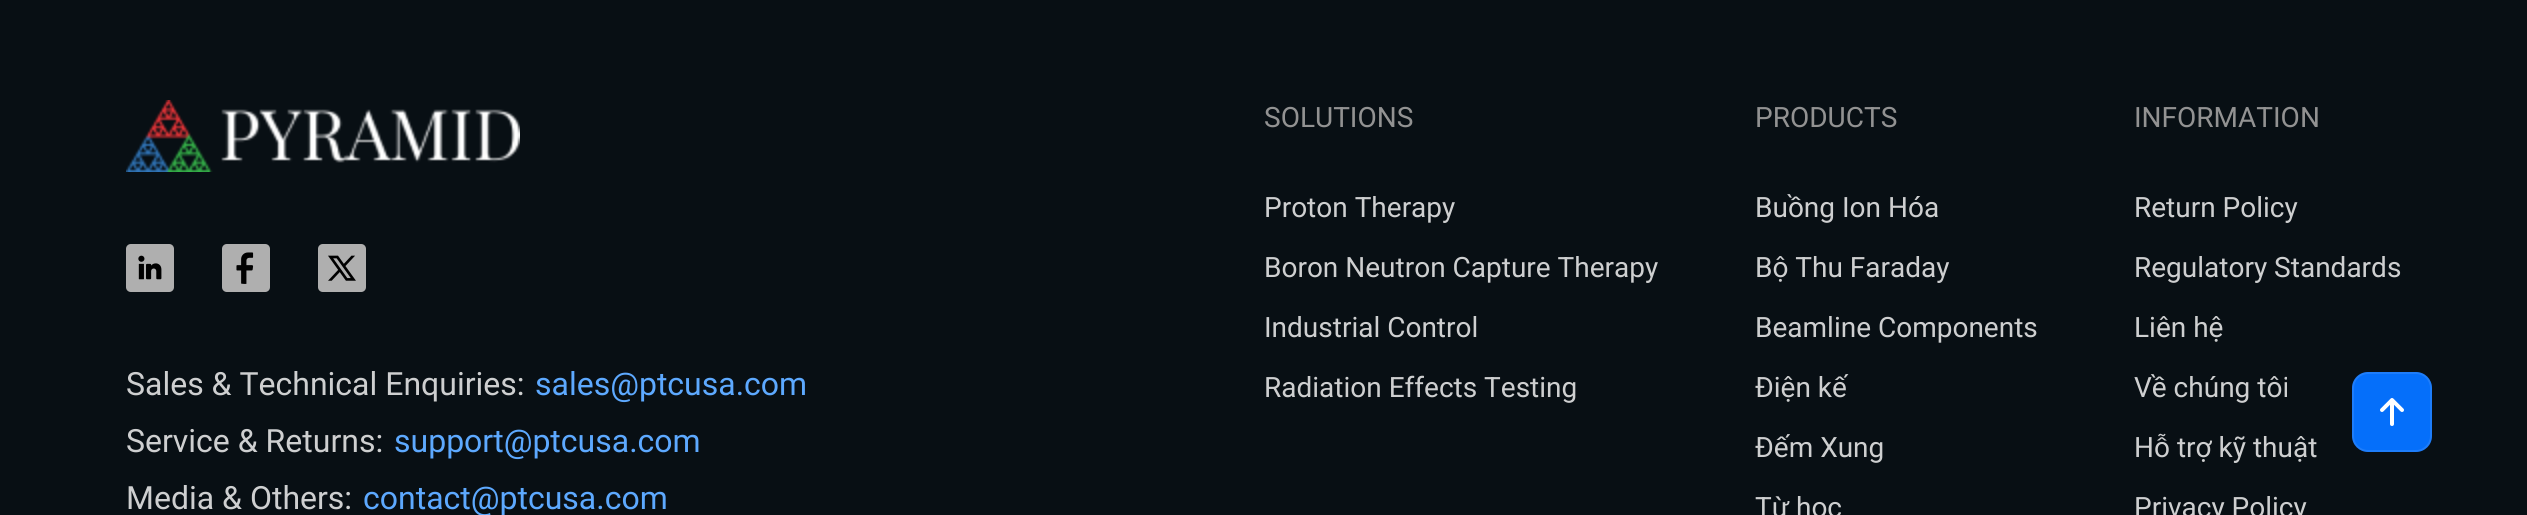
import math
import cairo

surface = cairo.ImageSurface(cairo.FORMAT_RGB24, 2527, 515)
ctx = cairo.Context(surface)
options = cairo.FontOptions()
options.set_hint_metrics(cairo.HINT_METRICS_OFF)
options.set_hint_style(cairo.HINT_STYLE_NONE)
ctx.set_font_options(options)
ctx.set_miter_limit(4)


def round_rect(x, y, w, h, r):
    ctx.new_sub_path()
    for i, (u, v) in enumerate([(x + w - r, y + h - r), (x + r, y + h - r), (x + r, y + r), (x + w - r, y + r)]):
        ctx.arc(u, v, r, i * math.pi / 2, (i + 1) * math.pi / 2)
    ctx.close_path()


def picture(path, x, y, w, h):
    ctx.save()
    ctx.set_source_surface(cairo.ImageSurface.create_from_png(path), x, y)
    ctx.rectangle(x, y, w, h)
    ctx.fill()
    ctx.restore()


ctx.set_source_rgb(0.035, 0.059, 0.082)
ctx.paint()
picture("img1.png", 126, 100, 394, 72)
picture("img2.png", 126, 244, 48, 48)
picture("img3.png", 222, 244, 48, 48)
picture("img4.png", 318, 244, 48, 48)
ctx.select_font_face("Roboto")
ctx.set_font_size(32)
ctx.set_source_rgb(0.808, 0.812, 0.816)
ctx.move_to(126, 395)
ctx.show_text("Sales & Technical Enquiries:")
ctx.set_source_rgb(0.365, 0.663, 1)
ctx.move_to(535, 395)
ctx.show_text("sales@ptcusa.com")
ctx.set_source_rgb(0.808, 0.812, 0.816)
ctx.move_to(126, 452)
ctx.show_text("Service & Returns:")
ctx.set_source_rgb(0.365, 0.663, 1)
ctx.move_to(394, 452)
ctx.show_text("support@ptcusa.com")
ctx.set_source_rgb(0.808, 0.812, 0.816)
ctx.move_to(126, 509)
ctx.show_text("Media & Others:")
ctx.set_source_rgb(0.365, 0.663, 1)
ctx.move_to(363, 509)
ctx.show_text("contact@ptcusa.com")
ctx.set_font_size(28)
ctx.set_source_rgb(0.573, 0.573, 0.573)
ctx.move_to(1264, 127)
ctx.show_text("SOLUTIONS")
ctx.set_source_rgb(0.808, 0.812, 0.816)
ctx.move_to(1264, 217)
ctx.show_text("Proton Therapy")
ctx.move_to(1264, 277)
ctx.show_text("Boron Neutron Capture Therapy")
ctx.move_to(1264, 337)
ctx.show_text("Industrial Control")
ctx.move_to(1264, 397)
ctx.show_text("Radiation Effects Testing")
ctx.set_source_rgb(0.573, 0.573, 0.573)
ctx.move_to(1755, 127)
ctx.show_text("PRODUCTS")
ctx.set_source_rgb(0.808, 0.812, 0.816)
ctx.move_to(1755, 217)
ctx.show_text("Buồng Ion Hóa")
ctx.move_to(1755, 277)
ctx.show_text("Bộ Thu Faraday")
ctx.move_to(1755, 337)
ctx.show_text("Beamline Components")
ctx.move_to(1755, 397)
ctx.show_text("Điện kế")
ctx.move_to(1755, 457)
ctx.show_text("Đếm Xung")
ctx.move_to(1755, 517)
ctx.show_text("Từ học")
ctx.set_source_rgb(0.573, 0.573, 0.573)
ctx.move_to(2134, 127)
ctx.show_text("INFORMATION")
ctx.set_source_rgb(0.808, 0.812, 0.816)
ctx.move_to(2134, 217)
ctx.show_text("Return Policy")
ctx.move_to(2134, 277)
ctx.show_text("Regulatory Standards")
ctx.move_to(2134, 337)
ctx.show_text("Liên hệ")
ctx.move_to(2134, 397)
ctx.show_text("Về chúng tôi")
ctx.move_to(2134, 457)
ctx.show_text("Hỗ trợ kỹ thuật")
ctx.move_to(2134, 517)
ctx.show_text("Privacy Policy")
ctx.set_source_rgb(0.02, 0.435, 0.98)
round_rect(2352, 372, 80, 80, 16)
ctx.fill()
round_rect(2353, 373, 78, 78, 15)
ctx.set_source_rgba(1, 1, 1, 0.1)
ctx.stroke()
picture("img5.png", 2380, 398, 24, 28)
surface.write_to_png("page.png")
